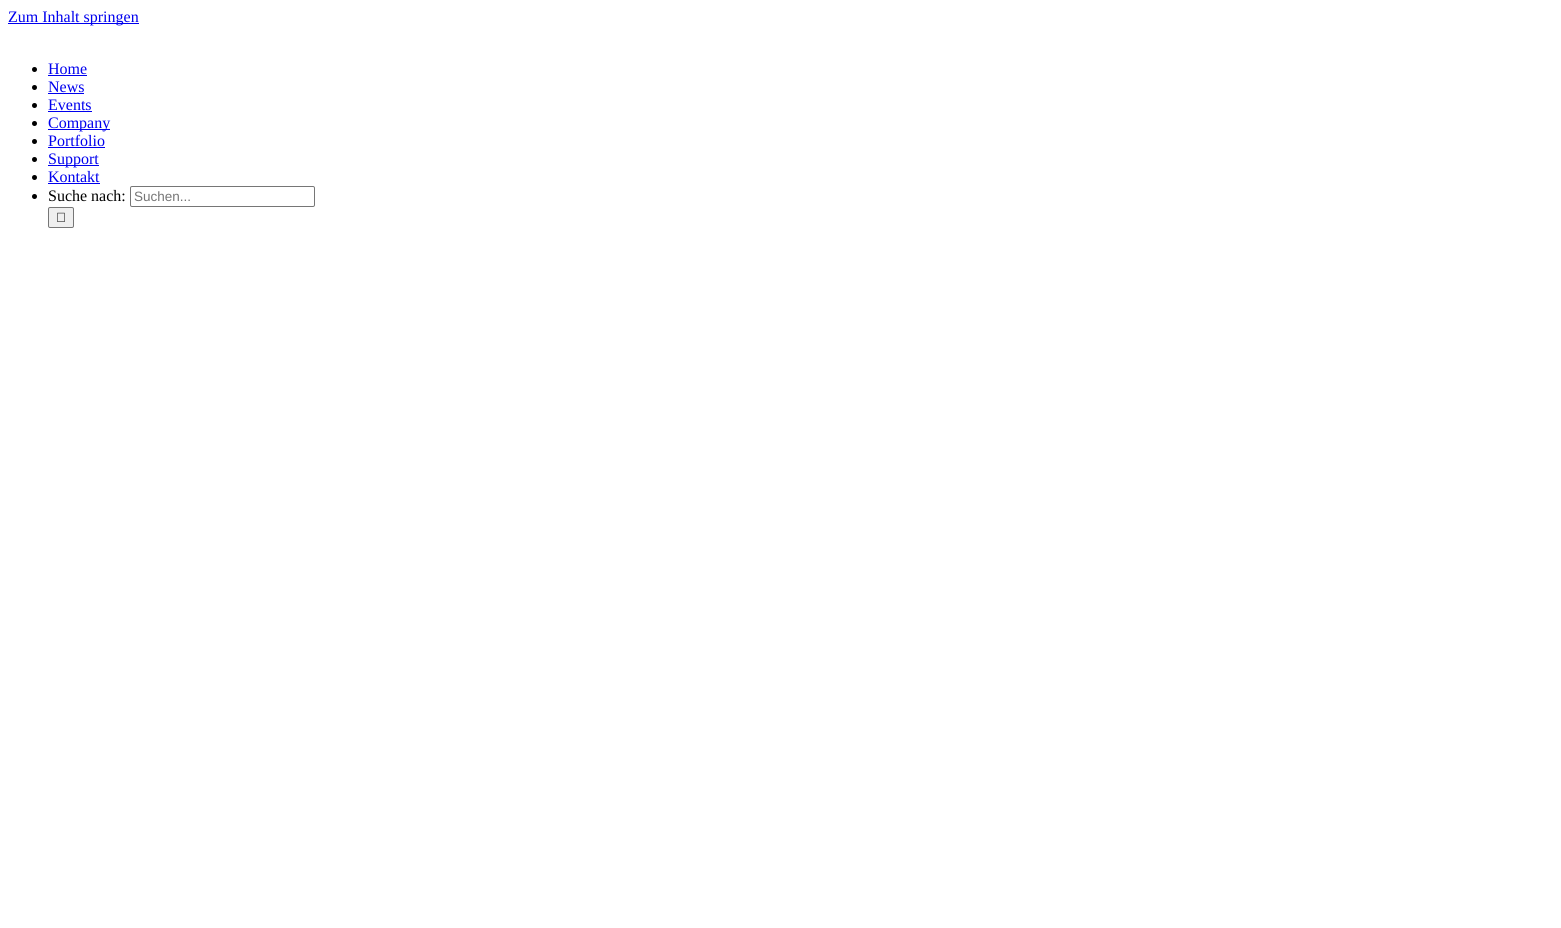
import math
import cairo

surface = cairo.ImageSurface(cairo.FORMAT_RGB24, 1561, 928)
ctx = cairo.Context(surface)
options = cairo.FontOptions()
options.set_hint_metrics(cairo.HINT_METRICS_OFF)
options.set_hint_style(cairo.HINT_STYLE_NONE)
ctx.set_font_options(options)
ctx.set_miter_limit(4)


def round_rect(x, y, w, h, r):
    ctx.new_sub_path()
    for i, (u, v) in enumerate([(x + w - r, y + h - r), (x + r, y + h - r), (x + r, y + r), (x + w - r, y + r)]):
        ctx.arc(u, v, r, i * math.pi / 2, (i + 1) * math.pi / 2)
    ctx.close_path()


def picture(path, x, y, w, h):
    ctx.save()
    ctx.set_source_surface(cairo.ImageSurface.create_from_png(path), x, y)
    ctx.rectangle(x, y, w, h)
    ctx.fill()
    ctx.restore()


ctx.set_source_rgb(1, 1, 1)
ctx.paint()
ctx.set_source_rgb(0, 0, 0.933)
ctx.rectangle(8, 23, 131, 1)
ctx.fill()
ctx.select_font_face("Liberation Serif")
ctx.set_font_size(16)
ctx.move_to(8, 22)
ctx.show_text("Zum Inhalt springen")
ctx.set_source_rgb(0, 0, 0)
ctx.new_path()
ctx.arc(34.5, 69.5, 2.5, 0, 2 * math.pi)
ctx.fill()
ctx.set_source_rgb(0, 0, 0.933)
ctx.move_to(48, 74)
ctx.show_text("Home")
ctx.rectangle(48, 75, 39, 1)
ctx.fill()
ctx.set_source_rgb(0, 0, 0)
ctx.arc(34.5, 87.5, 2.5, 0, 2 * math.pi)
ctx.fill()
ctx.set_source_rgb(0, 0, 0.933)
ctx.move_to(48, 92)
ctx.show_text("News")
ctx.rectangle(48, 93, 36, 1)
ctx.fill()
ctx.set_source_rgb(0, 0, 0)
ctx.arc(34.5, 105.5, 2.5, 0, 2 * math.pi)
ctx.fill()
ctx.set_source_rgb(0, 0, 0.933)
ctx.move_to(48, 110)
ctx.show_text("Events")
ctx.rectangle(48, 111, 44, 1)
ctx.fill()
ctx.set_source_rgb(0, 0, 0)
ctx.arc(34.5, 123.5, 2.5, 0, 2 * math.pi)
ctx.fill()
ctx.set_source_rgb(0, 0, 0.933)
ctx.rectangle(48, 129, 62, 1)
ctx.fill()
ctx.move_to(48, 128)
ctx.show_text("Company")
ctx.set_source_rgb(0, 0, 0)
ctx.new_path()
ctx.arc(34.5, 141.5, 2.5, 0, 2 * math.pi)
ctx.fill()
ctx.set_source_rgb(0, 0, 0.933)
ctx.move_to(48, 146)
ctx.show_text("Portfolio")
ctx.rectangle(48, 147, 57, 1)
ctx.fill()
ctx.set_source_rgb(0, 0, 0)
ctx.arc(34.5, 159.5, 2.5, 0, 2 * math.pi)
ctx.fill()
ctx.set_source_rgb(0, 0, 0.933)
ctx.rectangle(48, 165, 51, 1)
ctx.fill()
ctx.move_to(48, 164)
ctx.show_text("Support")
ctx.set_source_rgb(0, 0, 0)
ctx.new_path()
ctx.arc(34.5, 177.5, 2.5, 0, 2 * math.pi)
ctx.fill()
ctx.set_source_rgb(0, 0, 0.933)
ctx.move_to(48, 182)
ctx.show_text("Kontakt")
ctx.rectangle(48, 183, 52, 1)
ctx.fill()
ctx.set_source_rgb(0, 0, 0)
ctx.arc(34.5, 196.5, 2.5, 0, 2 * math.pi)
ctx.fill()
ctx.move_to(48, 201)
ctx.show_text("Suche nach:")
round_rect(130.5, 186.5, 184, 20, 1.5)
ctx.set_source_rgb(0.463, 0.463, 0.463)
ctx.set_line_width(1)
ctx.stroke()
ctx.select_font_face("Liberation Sans")
ctx.set_font_size(13.5)
ctx.set_source_rgb(0.459, 0.459, 0.459)
ctx.move_to(134, 201)
ctx.show_text("Suchen...")
ctx.set_source_rgb(0.937, 0.937, 0.937)
round_rect(48.5, 207.5, 25, 20, 1.5)
ctx.fill_preserve()
ctx.set_source_rgb(0.463, 0.463, 0.463)
ctx.stroke()
picture("img1.png", 57, 212, 8, 10)
surface.write_to_png("page.png")
